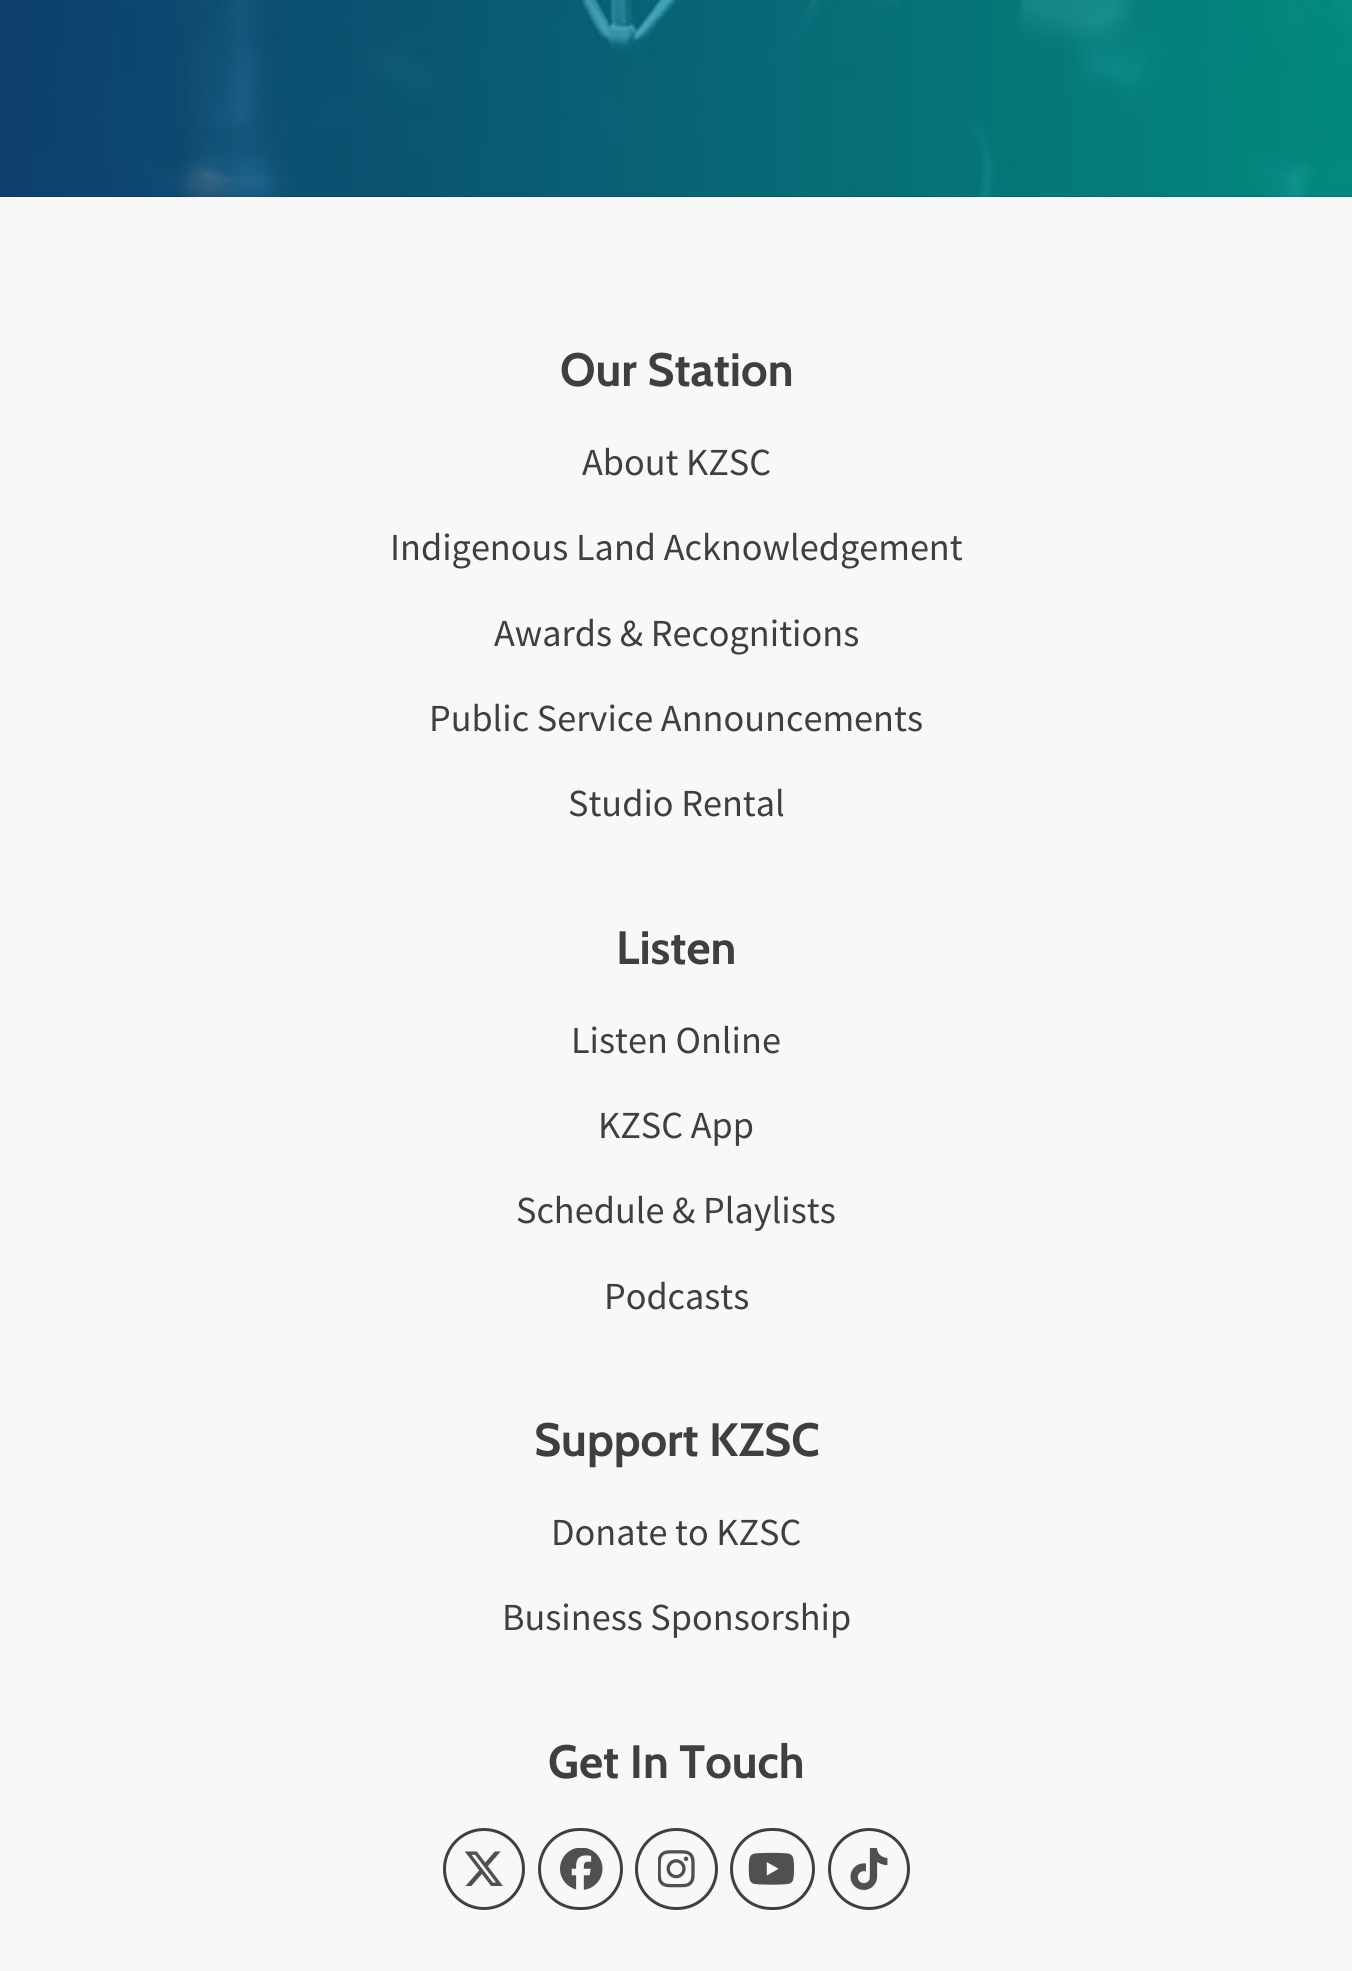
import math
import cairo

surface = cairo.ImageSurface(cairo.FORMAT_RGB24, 1352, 1971)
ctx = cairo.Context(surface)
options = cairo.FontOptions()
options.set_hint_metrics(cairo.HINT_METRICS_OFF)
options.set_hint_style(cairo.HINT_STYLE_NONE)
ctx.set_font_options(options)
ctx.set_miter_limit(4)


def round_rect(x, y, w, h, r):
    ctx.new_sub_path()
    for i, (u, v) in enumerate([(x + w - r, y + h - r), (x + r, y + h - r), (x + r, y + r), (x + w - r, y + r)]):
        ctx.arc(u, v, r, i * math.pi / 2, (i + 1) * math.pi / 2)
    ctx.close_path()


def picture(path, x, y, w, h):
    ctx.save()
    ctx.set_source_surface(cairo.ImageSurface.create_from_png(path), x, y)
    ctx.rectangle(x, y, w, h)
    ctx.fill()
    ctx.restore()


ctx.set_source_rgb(0.969, 0.969, 0.969)
ctx.paint()
picture("img1.png", 0, 0, 1352, 197)
ctx.select_font_face("Cabin", cairo.FONT_SLANT_NORMAL, cairo.FONT_WEIGHT_BOLD)
ctx.set_font_size(46.75)
ctx.set_source_rgb(0.247, 0.247, 0.247)
ctx.move_to(560, 386)
ctx.show_text("Our Station")
ctx.select_font_face("Source Sans Pro")
ctx.set_font_size(38.25)
ctx.move_to(582, 475)
ctx.show_text("About KZSC")
ctx.move_to(390, 560)
ctx.show_text("Indigenous Land Acknowledgement")
ctx.move_to(494, 646)
ctx.show_text("Awards & Recognitions")
ctx.move_to(429, 731)
ctx.show_text("Public Service Announcements")
ctx.move_to(568, 816)
ctx.show_text("Studio Rental")
ctx.select_font_face("Cabin", cairo.FONT_SLANT_NORMAL, cairo.FONT_WEIGHT_BOLD)
ctx.set_font_size(46.75)
ctx.move_to(616, 964)
ctx.show_text("Listen")
ctx.select_font_face("Source Sans Pro")
ctx.set_font_size(38.25)
ctx.move_to(571, 1053)
ctx.show_text("Listen Online")
ctx.move_to(598, 1138)
ctx.show_text("KZSC App")
ctx.move_to(516, 1223)
ctx.show_text("Schedule & Playlists")
ctx.move_to(604, 1309)
ctx.show_text("Podcasts")
ctx.select_font_face("Cabin", cairo.FONT_SLANT_NORMAL, cairo.FONT_WEIGHT_BOLD)
ctx.set_font_size(46.75)
ctx.move_to(534, 1456)
ctx.show_text("Support KZSC")
ctx.select_font_face("Source Sans Pro")
ctx.set_font_size(38.25)
ctx.move_to(551, 1545)
ctx.show_text("Donate to KZSC")
ctx.move_to(502, 1630)
ctx.show_text("Business Sponsorship")
ctx.select_font_face("Cabin", cairo.FONT_SLANT_NORMAL, cairo.FONT_WEIGHT_BOLD)
ctx.set_font_size(46.75)
ctx.move_to(548, 1778)
ctx.show_text("Get In Touch")
ctx.new_path()
ctx.arc(484, 1869, 39.5, 0, 2 * math.pi)
ctx.set_line_width(3)
ctx.stroke()
picture("img2.png", 464, 1851, 39, 35)
round_rect(539.5, 1829.5, 82, 79, 39.5)
ctx.stroke()
picture("img3.png", 560, 1848, 43, 42)
round_rect(636.5, 1829.5, 80, 79, 39.5)
ctx.stroke()
picture("img4.png", 658, 1850, 37, 38)
round_rect(731.5, 1829.5, 82, 79, 39.5)
ctx.stroke()
picture("img5.png", 748, 1852, 47, 33)
ctx.arc(869, 1869, 39.5, 0, 2 * math.pi)
ctx.stroke()
picture("img6.png", 850, 1848, 38, 42)
surface.write_to_png("page.png")
